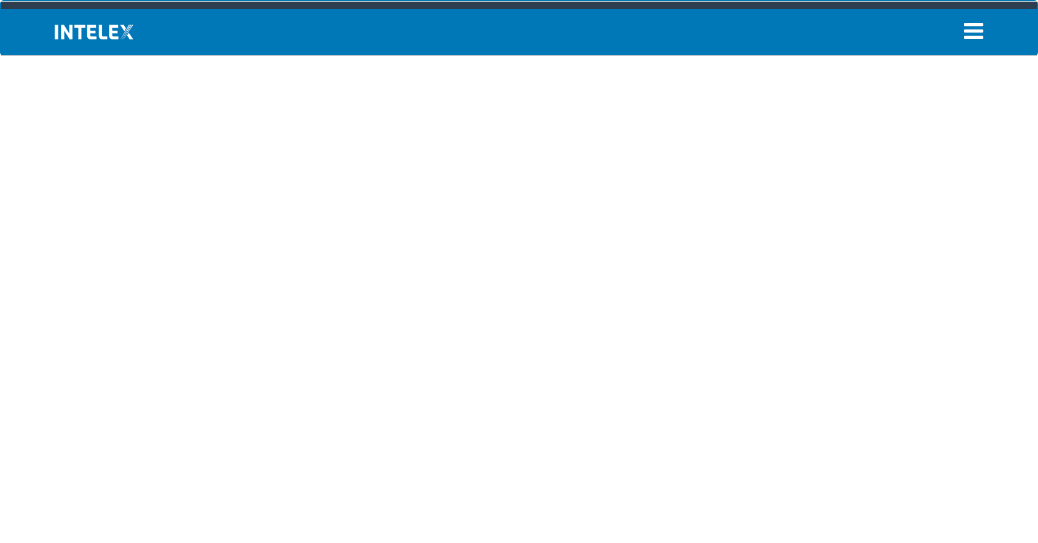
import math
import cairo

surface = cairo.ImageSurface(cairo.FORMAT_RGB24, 1038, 543)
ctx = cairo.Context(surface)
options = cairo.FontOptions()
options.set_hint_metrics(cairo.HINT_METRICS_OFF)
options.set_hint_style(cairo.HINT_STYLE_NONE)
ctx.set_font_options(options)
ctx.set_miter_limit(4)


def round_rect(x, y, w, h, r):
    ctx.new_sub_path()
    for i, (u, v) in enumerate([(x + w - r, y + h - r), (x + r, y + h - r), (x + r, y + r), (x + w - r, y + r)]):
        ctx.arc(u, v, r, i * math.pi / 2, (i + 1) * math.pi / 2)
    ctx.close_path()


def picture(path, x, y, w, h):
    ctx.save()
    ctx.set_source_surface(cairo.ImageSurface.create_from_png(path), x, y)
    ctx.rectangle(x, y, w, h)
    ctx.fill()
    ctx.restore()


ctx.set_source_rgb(1, 1, 1)
ctx.paint()
ctx.set_source_rgb(0, 0.471, 0.722)
round_rect(0, 0, 1038, 56, 4)
ctx.fill()
ctx.set_source_rgb(0.729, 0.765, 0.765)
ctx.rectangle(1, 1, 1036, 1)
ctx.fill()
ctx.set_source_rgb(0.173, 0.243, 0.314)
ctx.rectangle(1, 2, 1036, 7)
ctx.fill()
ctx.set_source_rgb(0, 0.471, 0.722)
ctx.rectangle(1, 54, 1036, 1)
ctx.fill()
ctx.set_source_rgb(0.741, 0.765, 0.78)
ctx.rectangle(1, 55, 1036, 1)
ctx.fill()
picture("img1.png", 54, 24, 80, 16)
picture("img2.png", 964, 23, 20, 16)
surface.write_to_png("page.png")
